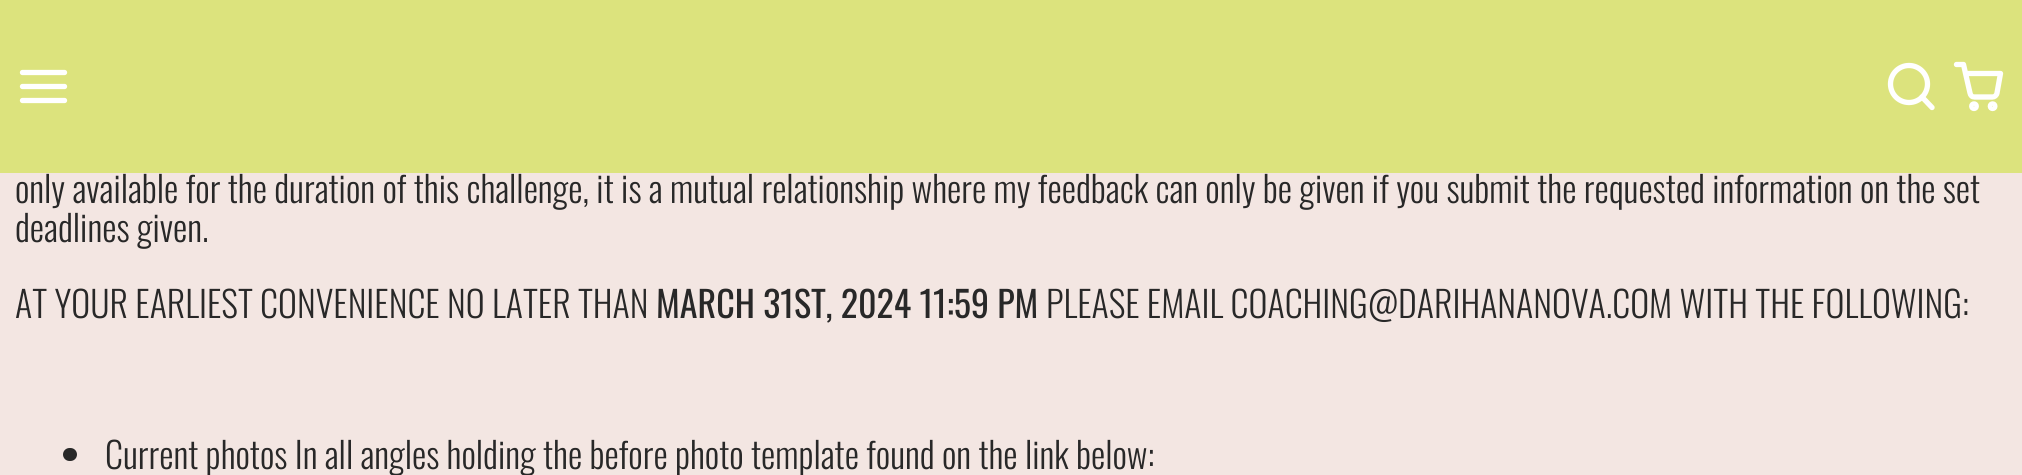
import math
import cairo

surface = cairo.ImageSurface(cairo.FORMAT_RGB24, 2022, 475)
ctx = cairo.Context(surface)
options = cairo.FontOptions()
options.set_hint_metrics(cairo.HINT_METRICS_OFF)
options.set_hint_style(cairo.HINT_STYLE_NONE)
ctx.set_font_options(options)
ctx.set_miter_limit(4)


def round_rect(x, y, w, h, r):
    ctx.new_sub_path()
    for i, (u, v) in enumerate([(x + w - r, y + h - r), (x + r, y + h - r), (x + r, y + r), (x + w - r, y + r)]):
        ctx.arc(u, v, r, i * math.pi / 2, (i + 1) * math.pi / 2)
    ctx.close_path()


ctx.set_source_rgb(0.953, 0.902, 0.886)
ctx.paint()
ctx.set_source_rgb(0.863, 0.89, 0.49)
ctx.rectangle(0, 0, 2022, 173)
ctx.fill()
ctx.new_path()
ctx.move_to(22.5, 86.5)
ctx.line_to(64.5, 86.5)
ctx.move_to(22.5, 72.5)
ctx.line_to(64.5, 72.5)
ctx.move_to(22.5, 100.5)
ctx.line_to(64.5, 100.5)
ctx.set_source_rgb(1, 1, 1)
ctx.set_line_width(5.3)
ctx.set_line_cap(cairo.LINE_CAP_ROUND)
ctx.set_line_join(cairo.LINE_JOIN_ROUND)
ctx.stroke()
ctx.arc(1909, 84, 18.5, 0, 2 * math.pi)
ctx.set_line_cap(cairo.LINE_CAP_BUTT)
ctx.set_line_join(cairo.LINE_JOIN_MITER)
ctx.stroke()
ctx.new_path()
ctx.move_to(1932, 107.5)
ctx.line_to(1922, 97)
ctx.set_line_cap(cairo.LINE_CAP_ROUND)
ctx.set_line_join(cairo.LINE_JOIN_ROUND)
ctx.stroke()
ctx.arc(1974, 106.2, 2.3, 0, 2 * math.pi)
ctx.set_line_cap(cairo.LINE_CAP_BUTT)
ctx.set_line_join(cairo.LINE_JOIN_MITER)
ctx.stroke()
ctx.arc(1992.6, 106.2, 2.3, 0, 2 * math.pi)
ctx.stroke()
ctx.new_path()
ctx.move_to(1956.5, 64.5)
ctx.line_to(1963.5, 64.5)
ctx.line_to(1970, 93)
ctx.curve_to(1970.5, 95.5, 1972, 97, 1974.5, 97)
ctx.line_to(1992.5, 97)
ctx.curve_to(1994.5, 97, 1996.5, 95.5, 1997, 93)
ctx.line_to(2000.5, 73.5)
ctx.line_to(1967.5, 73.5)
ctx.set_line_cap(cairo.LINE_CAP_ROUND)
ctx.set_line_join(cairo.LINE_JOIN_ROUND)
ctx.stroke()
ctx.select_font_face("Oswald Light")
ctx.set_font_size(36)
ctx.set_source_rgb(0.157, 0.157, 0.157)
ctx.move_to(15, 203)
ctx.show_text("only available for the duration of this challenge, it is a mutual relationship where my feedback can only be given if you submit the requested information on the set")
ctx.move_to(15, 242)
ctx.show_text("deadlines given.")
ctx.move_to(15, 318)
ctx.show_text("AT YOUR EARLIEST CONVENIENCE NO LATER THAN")
ctx.select_font_face("Oswald")
ctx.move_to(656, 318)
ctx.show_text("MARCH 31ST, 2024 11:59 PM")
ctx.select_font_face("Oswald Light")
ctx.move_to(1046, 318)
ctx.show_text("PLEASE EMAIL COACHING@DARIHANANOVA.COM WITH THE FOLLOWING:")
round_rect(63, 448, 14, 13, 6.5)
ctx.fill()
ctx.move_to(105, 469)
ctx.show_text("Current photos In all angles holding the before photo template found on the link below:")
surface.write_to_png("page.png")
